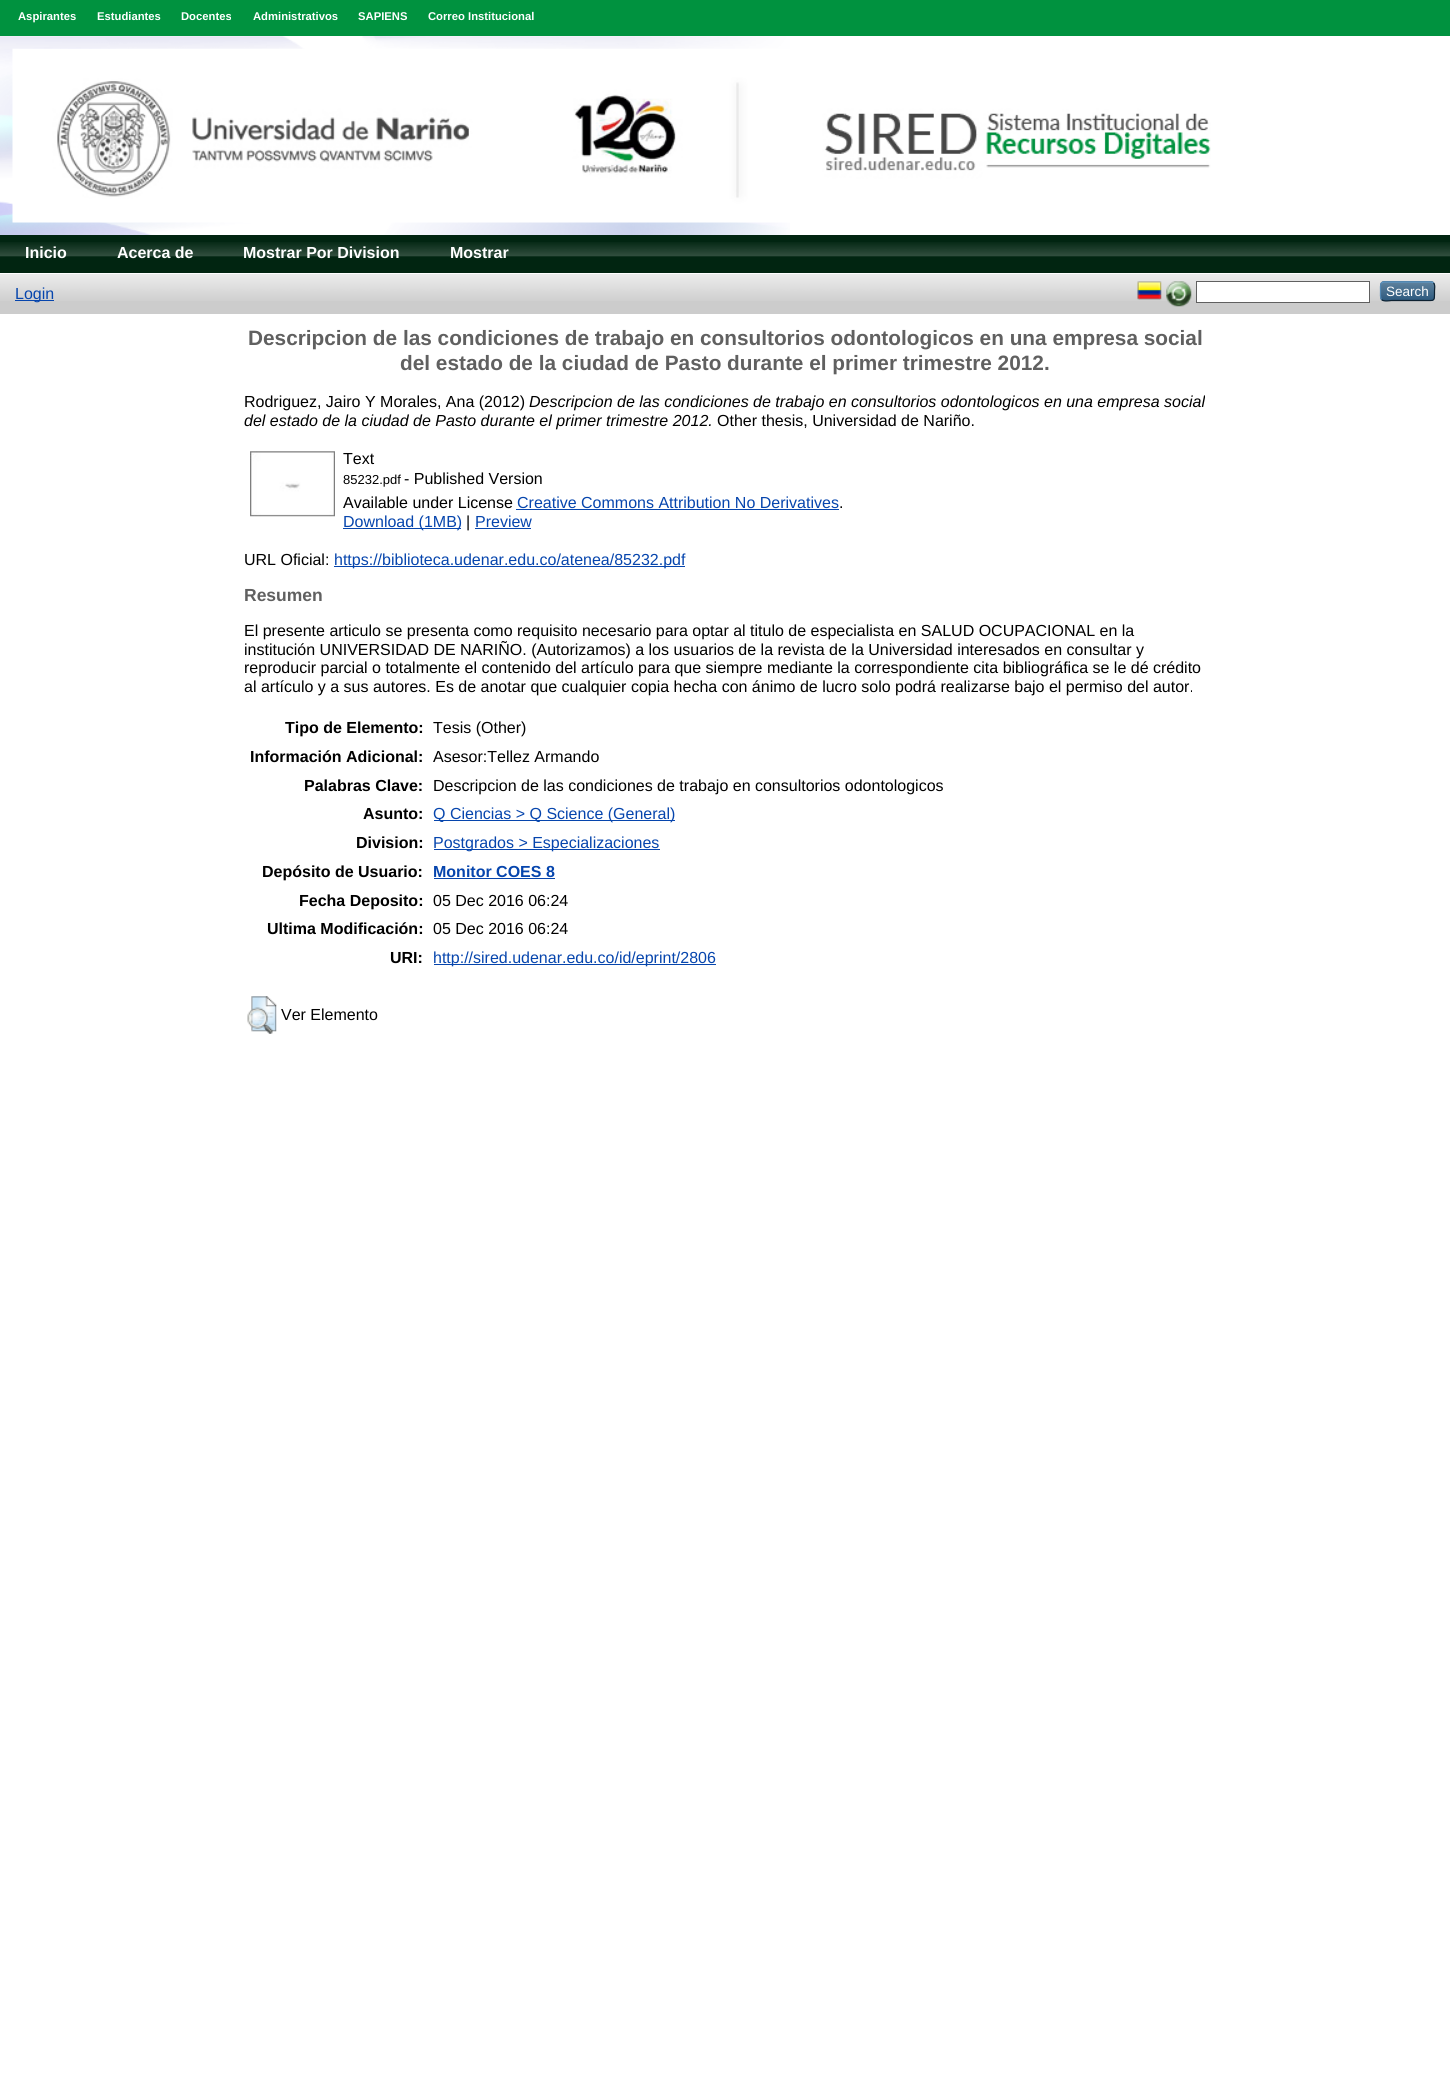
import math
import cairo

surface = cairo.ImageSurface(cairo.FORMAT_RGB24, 1450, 2078)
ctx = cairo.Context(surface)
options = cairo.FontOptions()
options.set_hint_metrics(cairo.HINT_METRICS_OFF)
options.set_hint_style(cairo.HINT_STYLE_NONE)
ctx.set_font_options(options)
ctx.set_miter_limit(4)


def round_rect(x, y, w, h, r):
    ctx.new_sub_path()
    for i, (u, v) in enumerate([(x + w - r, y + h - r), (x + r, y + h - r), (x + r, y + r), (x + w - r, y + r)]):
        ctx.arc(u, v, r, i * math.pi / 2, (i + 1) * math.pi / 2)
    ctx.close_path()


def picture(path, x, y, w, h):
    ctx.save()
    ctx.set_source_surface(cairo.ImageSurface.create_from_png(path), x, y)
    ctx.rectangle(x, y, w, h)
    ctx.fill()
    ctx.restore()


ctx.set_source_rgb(1, 1, 1)
ctx.paint()
ctx.set_source_rgb(0, 0.573, 0.247)
ctx.rectangle(0, 0, 1450, 36)
ctx.fill()
ctx.select_font_face("Liberation Sans", cairo.FONT_SLANT_NORMAL, cairo.FONT_WEIGHT_BOLD)
ctx.set_font_size(11.25)
ctx.set_source_rgb(1, 1, 1)
ctx.move_to(18, 20)
ctx.show_text("Aspirantes")
ctx.move_to(97, 20)
ctx.show_text("Estudiantes")
ctx.move_to(181, 20)
ctx.show_text("Docentes")
ctx.move_to(253, 20)
ctx.show_text("Administrativos")
ctx.move_to(358, 20)
ctx.show_text("SAPIENS")
ctx.move_to(428, 20)
ctx.show_text("Correo Institucional")
picture("img1.png", 0, 36, 790, 199)
picture("img2.png", 12, 48, 1199, 175)
ctx.set_source_rgb(0.004, 0.145, 0.067)
ctx.rectangle(0, 235, 1450, 38)
ctx.fill()
picture("img3.png", 0, 242, 1450, 15)
ctx.set_font_size(16)
ctx.set_source_rgb(1, 1, 1)
ctx.move_to(25, 258)
ctx.show_text("Inicio")
ctx.move_to(117, 258)
ctx.show_text("Acerca de")
ctx.move_to(243, 258)
ctx.show_text("Mostrar Por Division")
ctx.move_to(450, 258)
ctx.show_text("Mostrar")
ctx.set_source_rgb(0.8, 0.8, 0.8)
ctx.rectangle(0, 274, 1450, 40)
ctx.fill()
picture("img4.png", 0, 274, 1450, 27)
ctx.set_source_rgb(0.024, 0.271, 0.678)
ctx.rectangle(15, 300, 39, 1)
ctx.fill()
ctx.select_font_face("Liberation Sans")
ctx.move_to(15, 299)
ctx.show_text("Login")
picture("img5.png", 1137, 281, 25, 19)
picture("img6.png", 1166, 281, 26, 26)
ctx.set_source_rgb(1, 1, 1)
ctx.rectangle(1196.5, 281.5, 173, 21)
ctx.fill_preserve()
ctx.set_source_rgb(0.376, 0.376, 0.376)
ctx.set_line_width(1)
ctx.stroke()
ctx.set_source_rgb(0.122, 0.31, 0.463)
round_rect(1380, 281, 55, 20, 4)
ctx.fill()
picture("img7.png", 1380, 281, 55, 20)
ctx.new_path()
ctx.move_to(1381.5, 283)
ctx.line_to(1383.5, 282)
ctx.line_to(1431.5, 282)
ctx.line_to(1433.5, 283)
ctx.set_source_rgb(0.357, 0.592, 0.78)
ctx.set_line_width(1.2)
ctx.stroke()
ctx.new_path()
ctx.move_to(1433.5, 283)
ctx.curve_to(1435.5, 285, 1434.5, 289, 1434.5, 291)
ctx.curve_to(1434.5, 302, 1435, 300.5, 1423.5, 300.5)
ctx.line_to(1391.5, 300.5)
ctx.curve_to(1391, 300.5, 1383.5, 302, 1381.5, 299.5)
ctx.set_source_rgb(0.051, 0.129, 0.192)
ctx.stroke()
ctx.new_path()
ctx.move_to(1381.5, 299.5)
ctx.curve_to(1380, 298, 1380.5, 293.5, 1380.5, 291)
ctx.curve_to(1380.5, 289, 1380, 284.5, 1381.5, 283)
ctx.set_source_rgb(0.322, 0.529, 0.702)
ctx.stroke()
ctx.set_font_size(13.5)
ctx.set_source_rgb(1, 1, 1)
ctx.move_to(1386, 296)
ctx.show_text("Search")
ctx.select_font_face("Liberation Sans", cairo.FONT_SLANT_NORMAL, cairo.FONT_WEIGHT_BOLD)
ctx.set_font_size(20.8)
ctx.set_source_rgb(0.376, 0.376, 0.376)
ctx.move_to(248, 345)
ctx.show_text("Descripcion de las condiciones de trabajo en consultorios odontologicos en una empresa social")
ctx.move_to(400, 370)
ctx.show_text("del estado de la ciudad de Pasto durante el primer trimestre 2012.")
ctx.select_font_face("Liberation Sans")
ctx.set_font_size(16)
ctx.set_source_rgb(0, 0, 0)
ctx.move_to(244, 407)
ctx.show_text("Rodriguez, Jairo Y Morales, Ana (2012)")
ctx.select_font_face("Liberation Sans", cairo.FONT_SLANT_ITALIC)
ctx.move_to(529, 407)
ctx.show_text("Descripcion de las condiciones de trabajo en consultorios odontologicos en una empresa social")
ctx.move_to(244, 426)
ctx.show_text("del estado de la ciudad de Pasto durante el primer trimestre 2012.")
ctx.select_font_face("Liberation Sans")
ctx.move_to(717, 426)
ctx.show_text("Other thesis, Universidad de Nariño.")
picture("img8.png", 250, 451, 85, 66)
ctx.move_to(343, 464)
ctx.show_text("Text")
ctx.set_font_size(13)
ctx.move_to(343, 484)
ctx.show_text("85232.pdf")
ctx.set_font_size(16)
ctx.move_to(404, 484)
ctx.show_text("- Published Version")
ctx.move_to(343, 508)
ctx.show_text("Available under License")
ctx.set_source_rgb(0.024, 0.271, 0.678)
ctx.move_to(517, 508)
ctx.show_text("Creative Commons Attribution No Derivatives")
ctx.set_source_rgb(0, 0, 0)
ctx.move_to(839, 508)
ctx.show_text(".")
ctx.set_source_rgb(0.024, 0.271, 0.678)
ctx.rectangle(516, 509, 323, 1)
ctx.fill()
ctx.rectangle(343, 528, 118, 1)
ctx.fill()
ctx.move_to(343, 527)
ctx.show_text("Download (1MB)")
ctx.set_source_rgb(0, 0, 0)
ctx.move_to(466, 527)
ctx.show_text("|")
ctx.set_source_rgb(0.024, 0.271, 0.678)
ctx.move_to(475, 527)
ctx.show_text("Preview")
ctx.rectangle(475, 528, 56, 1)
ctx.fill()
ctx.set_source_rgb(0, 0, 0)
ctx.move_to(244, 565)
ctx.show_text("URL Oficial:")
ctx.set_source_rgb(0.024, 0.271, 0.678)
ctx.rectangle(334, 566, 351, 1)
ctx.fill()
ctx.move_to(334, 565)
ctx.show_text("https://biblioteca.udenar.edu.co/atenea/85232.pdf")
ctx.select_font_face("Liberation Sans", cairo.FONT_SLANT_NORMAL, cairo.FONT_WEIGHT_BOLD)
ctx.set_font_size(17.5)
ctx.set_source_rgb(0.376, 0.376, 0.376)
ctx.move_to(244, 601)
ctx.show_text("Resumen")
ctx.select_font_face("Liberation Sans")
ctx.set_font_size(16)
ctx.set_source_rgb(0, 0, 0)
ctx.move_to(244, 636)
ctx.show_text("El presente articulo se presenta como requisito necesario para optar al titulo de especialista en SALUD OCUPACIONAL en la")
ctx.move_to(244, 655)
ctx.show_text("institución UNIVERSIDAD DE NARIÑO. (Autorizamos) a los usuarios de la revista de la Universidad interesados en consultar y")
ctx.move_to(244, 673)
ctx.show_text("reproducir parcial o totalmente el contenido del artículo para que siempre mediante la correspondiente cita bibliográfica se le dé crédito")
ctx.move_to(244, 692)
ctx.show_text("al artículo y a sus autores. Es de anotar que cualquier copia hecha con ánimo de lucro solo podrá realizarse bajo el permiso del autor.")
ctx.select_font_face("Liberation Sans", cairo.FONT_SLANT_NORMAL, cairo.FONT_WEIGHT_BOLD)
ctx.move_to(285, 733)
ctx.show_text("Tipo de Elemento:")
ctx.select_font_face("Liberation Sans")
ctx.move_to(433, 733)
ctx.show_text("Tesis (Other)")
ctx.select_font_face("Liberation Sans", cairo.FONT_SLANT_NORMAL, cairo.FONT_WEIGHT_BOLD)
ctx.move_to(250, 762)
ctx.show_text("Información Adicional:")
ctx.select_font_face("Liberation Sans")
ctx.move_to(433, 762)
ctx.show_text("Asesor:Tellez Armando")
ctx.select_font_face("Liberation Sans", cairo.FONT_SLANT_NORMAL, cairo.FONT_WEIGHT_BOLD)
ctx.move_to(304, 791)
ctx.show_text("Palabras Clave:")
ctx.select_font_face("Liberation Sans")
ctx.move_to(433, 791)
ctx.show_text("Descripcion de las condiciones de trabajo en consultorios odontologicos")
ctx.select_font_face("Liberation Sans", cairo.FONT_SLANT_NORMAL, cairo.FONT_WEIGHT_BOLD)
ctx.move_to(363, 819)
ctx.show_text("Asunto:")
ctx.set_source_rgb(0.024, 0.271, 0.678)
ctx.rectangle(434, 820, 241, 1)
ctx.fill()
ctx.select_font_face("Liberation Sans")
ctx.move_to(433, 819)
ctx.show_text("Q Ciencias > Q Science (General)")
ctx.select_font_face("Liberation Sans", cairo.FONT_SLANT_NORMAL, cairo.FONT_WEIGHT_BOLD)
ctx.set_source_rgb(0, 0, 0)
ctx.move_to(356, 848)
ctx.show_text("Division:")
ctx.set_source_rgb(0.024, 0.271, 0.678)
ctx.rectangle(434, 849, 226, 1)
ctx.fill()
ctx.select_font_face("Liberation Sans")
ctx.move_to(433, 848)
ctx.show_text("Postgrados > Especializaciones")
ctx.select_font_face("Liberation Sans", cairo.FONT_SLANT_NORMAL, cairo.FONT_WEIGHT_BOLD)
ctx.set_source_rgb(0, 0, 0)
ctx.move_to(262, 877)
ctx.show_text("Depósito de Usuario:")
ctx.set_source_rgb(0.024, 0.271, 0.678)
ctx.move_to(433, 877)
ctx.show_text("Monitor COES 8")
ctx.rectangle(434, 878, 121, 1)
ctx.fill()
ctx.set_source_rgb(0, 0, 0)
ctx.move_to(299, 906)
ctx.show_text("Fecha Deposito:")
ctx.select_font_face("Liberation Sans")
ctx.move_to(433, 906)
ctx.show_text("05 Dec 2016 06:24")
ctx.select_font_face("Liberation Sans", cairo.FONT_SLANT_NORMAL, cairo.FONT_WEIGHT_BOLD)
ctx.move_to(267, 934)
ctx.show_text("Ultima Modificación:")
ctx.select_font_face("Liberation Sans")
ctx.move_to(433, 934)
ctx.show_text("05 Dec 2016 06:24")
ctx.select_font_face("Liberation Sans", cairo.FONT_SLANT_NORMAL, cairo.FONT_WEIGHT_BOLD)
ctx.move_to(390, 963)
ctx.show_text("URI:")
ctx.set_source_rgb(0.024, 0.271, 0.678)
ctx.rectangle(434, 964, 282, 1)
ctx.fill()
ctx.select_font_face("Liberation Sans")
ctx.move_to(433, 963)
ctx.show_text("http://sired.udenar.edu.co/id/eprint/2806")
picture("img9.png", 247, 996, 30, 38)
ctx.set_source_rgb(0, 0, 0)
ctx.move_to(281, 1020)
ctx.show_text("Ver Elemento")
surface.write_to_png("page.png")
